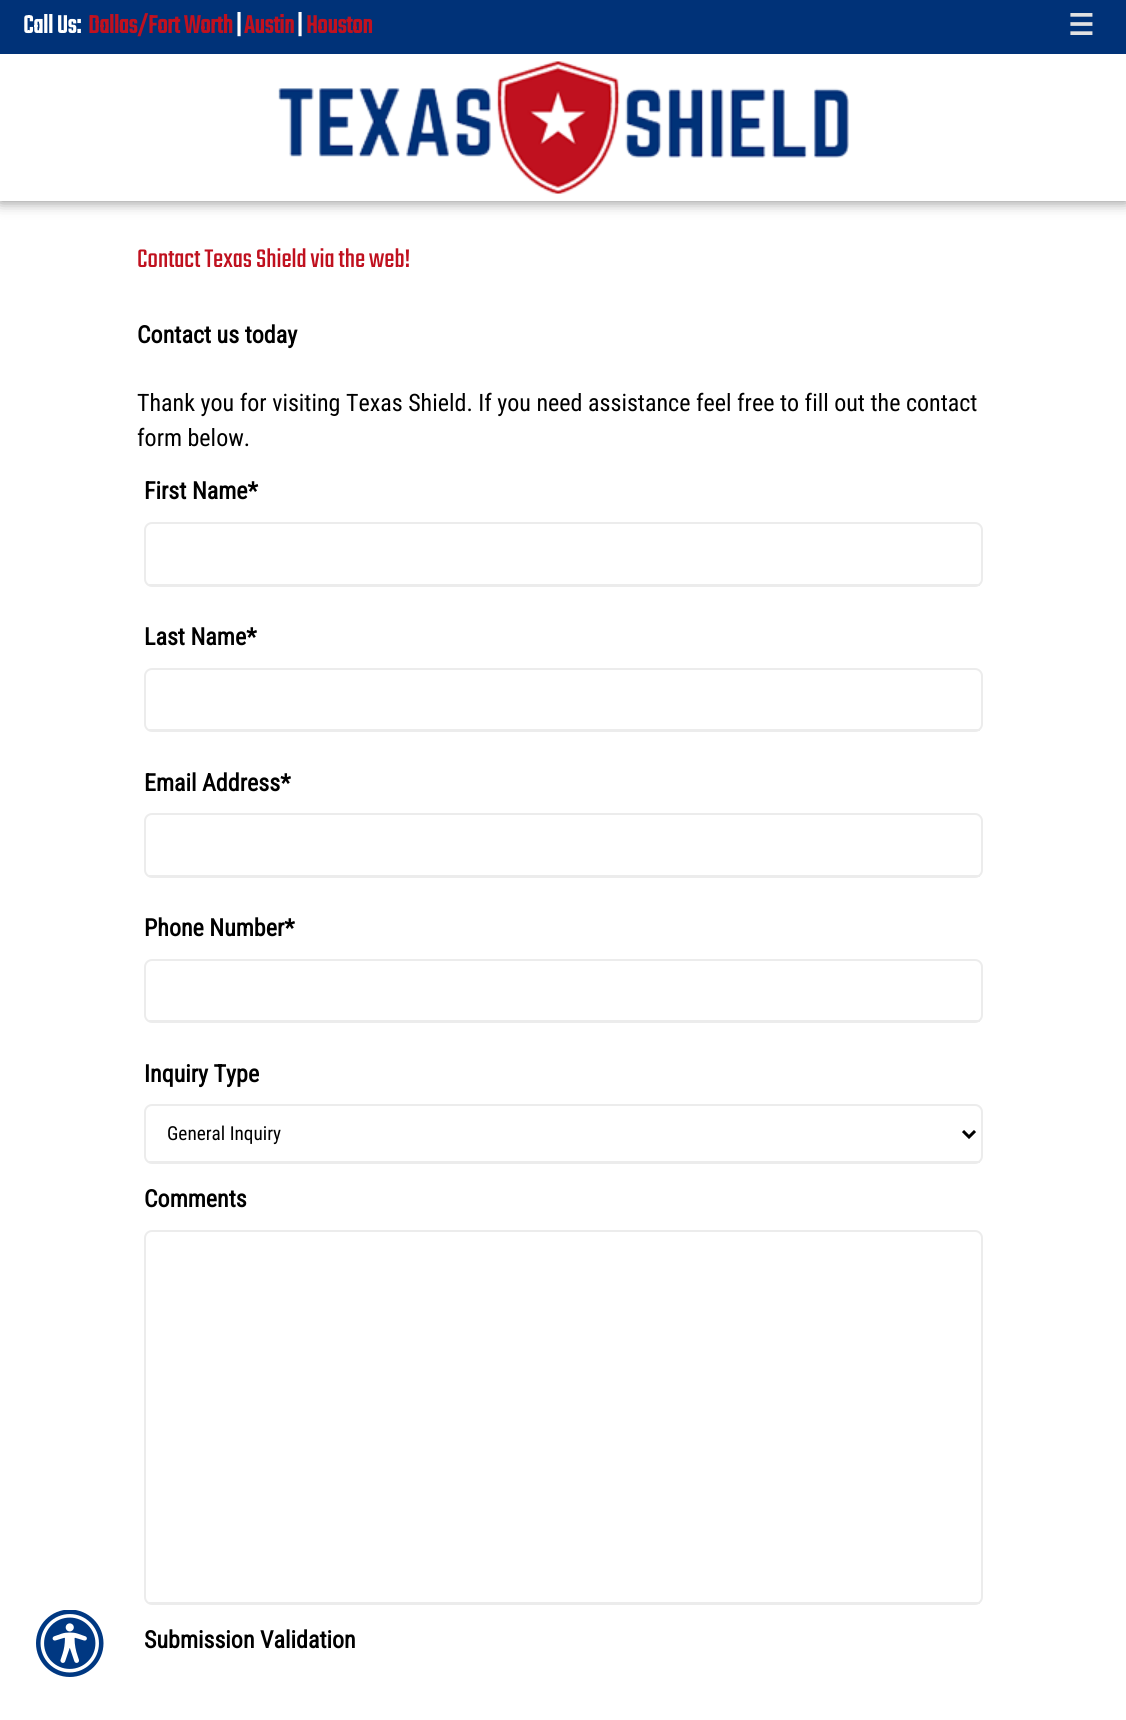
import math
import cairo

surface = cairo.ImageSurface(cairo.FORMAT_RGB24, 1126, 1720)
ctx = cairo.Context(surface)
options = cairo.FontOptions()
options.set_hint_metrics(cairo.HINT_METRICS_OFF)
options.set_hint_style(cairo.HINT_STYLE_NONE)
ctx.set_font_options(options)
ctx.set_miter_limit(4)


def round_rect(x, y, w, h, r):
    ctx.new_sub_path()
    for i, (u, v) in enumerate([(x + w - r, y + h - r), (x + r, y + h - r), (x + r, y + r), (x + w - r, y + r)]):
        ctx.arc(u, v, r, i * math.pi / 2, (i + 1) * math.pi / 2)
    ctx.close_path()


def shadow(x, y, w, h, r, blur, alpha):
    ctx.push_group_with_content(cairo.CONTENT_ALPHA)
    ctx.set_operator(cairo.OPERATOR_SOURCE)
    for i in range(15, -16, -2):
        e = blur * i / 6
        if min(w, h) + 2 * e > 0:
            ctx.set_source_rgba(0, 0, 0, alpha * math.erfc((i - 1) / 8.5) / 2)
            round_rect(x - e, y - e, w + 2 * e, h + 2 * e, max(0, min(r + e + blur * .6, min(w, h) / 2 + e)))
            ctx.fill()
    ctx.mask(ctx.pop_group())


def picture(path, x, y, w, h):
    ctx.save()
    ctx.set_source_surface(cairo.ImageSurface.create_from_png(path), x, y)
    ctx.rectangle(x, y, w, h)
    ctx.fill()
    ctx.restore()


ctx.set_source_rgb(1, 1, 1)
ctx.paint()
ctx.set_source_rgb(0, 0, 0)
shadow(0, 0, 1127, 201, 0, 7.5, 0.5)
ctx.set_source_rgb(1, 1, 1)
ctx.rectangle(0, 54, 1126, 147)
ctx.fill()
ctx.set_source_rgb(0, 0.196, 0.471)
ctx.rectangle(0, 0, 1126, 54)
ctx.fill()
ctx.select_font_face("Teko", cairo.FONT_SLANT_NORMAL, cairo.FONT_WEIGHT_BOLD)
ctx.set_font_size(27.25)
ctx.set_source_rgb(1, 1, 1)
ctx.move_to(23, 33)
ctx.show_text("Call Us:")
ctx.set_source_rgb(0.753, 0.067, 0.122)
ctx.move_to(88, 33)
ctx.show_text("Dallas/Fort Worth")
ctx.set_source_rgb(1, 1, 1)
ctx.move_to(236, 33)
ctx.show_text("|")
ctx.set_source_rgb(0.753, 0.067, 0.122)
ctx.move_to(244, 33)
ctx.show_text("Austin")
ctx.set_source_rgb(1, 1, 1)
ctx.move_to(297, 33)
ctx.show_text("|")
ctx.set_source_rgb(0.753, 0.067, 0.122)
ctx.move_to(306, 33)
ctx.show_text("Houston")
ctx.select_font_face("DejaVu Sans", cairo.FONT_SLANT_NORMAL, cairo.FONT_WEIGHT_BOLD)
ctx.set_font_size(29)
ctx.set_source_rgb(0.886, 0.886, 0.886)
ctx.move_to(1068, 35)
ctx.show_text("☰")
picture("img1.png", 278, 61, 571, 133)
ctx.select_font_face("Teko Light")
ctx.set_font_size(28)
ctx.set_source_rgb(0.753, 0.067, 0.122)
ctx.move_to(137, 267)
ctx.show_text("Contact Texas Shield via the web!")
ctx.select_font_face("Roboto Condensed", cairo.FONT_SLANT_NORMAL, cairo.FONT_WEIGHT_BOLD)
ctx.set_font_size(24)
ctx.set_source_rgb(0, 0, 0)
ctx.move_to(137, 343)
ctx.show_text("Contact us today")
ctx.select_font_face("Roboto Condensed")
ctx.move_to(137, 411)
ctx.show_text("Thank you for visiting Texas Shield. If you need assistance feel free to fill out the contact")
ctx.move_to(137, 446)
ctx.show_text("form below.")
ctx.select_font_face("Roboto Condensed", cairo.FONT_SLANT_NORMAL, cairo.FONT_WEIGHT_BOLD)
ctx.move_to(144, 499)
ctx.show_text("First Name*")
round_rect(145, 523, 837, 63, 7)
ctx.set_source_rgb(0.922, 0.922, 0.922)
ctx.stroke()
ctx.rectangle(149, 584, 831, 2)
ctx.fill()
ctx.set_source_rgb(0, 0, 0)
ctx.move_to(144, 645)
ctx.show_text("Last Name*")
round_rect(145, 669, 837, 62, 7)
ctx.set_source_rgb(0.922, 0.922, 0.922)
ctx.stroke()
ctx.rectangle(149, 729, 831, 2)
ctx.fill()
ctx.set_source_rgb(0, 0, 0)
ctx.move_to(144, 791)
ctx.show_text("Email Address*")
round_rect(145, 814, 837, 63, 7)
ctx.set_source_rgb(0.922, 0.922, 0.922)
ctx.stroke()
ctx.rectangle(149, 875, 831, 2)
ctx.fill()
ctx.set_source_rgb(0, 0, 0)
ctx.move_to(144, 936)
ctx.show_text("Phone Number*")
round_rect(145, 960, 837, 62, 7)
ctx.set_source_rgb(0.922, 0.922, 0.922)
ctx.stroke()
ctx.rectangle(149, 1020, 831, 2)
ctx.fill()
ctx.set_source_rgb(0, 0, 0)
ctx.move_to(144, 1082)
ctx.show_text("Inquiry Type")
round_rect(145, 1105, 837, 58, 7)
ctx.set_source_rgb(0.922, 0.922, 0.922)
ctx.stroke()
ctx.rectangle(149, 1161, 831, 2)
ctx.fill()
ctx.new_path()
ctx.move_to(963, 1131)
ctx.line_to(969, 1137)
ctx.line_to(975, 1131)
ctx.set_source_rgb(0, 0, 0)
ctx.set_line_width(3)
ctx.stroke()
ctx.select_font_face("Roboto Condensed")
ctx.set_font_size(19.25)
ctx.move_to(167, 1140)
ctx.show_text("General Inquiry")
ctx.select_font_face("Roboto Condensed", cairo.FONT_SLANT_NORMAL, cairo.FONT_WEIGHT_BOLD)
ctx.set_font_size(24)
ctx.move_to(144, 1207)
ctx.show_text("Comments")
round_rect(145, 1231, 837, 373, 7)
ctx.set_source_rgb(0.922, 0.922, 0.922)
ctx.set_line_width(2)
ctx.stroke()
ctx.rectangle(149, 1602, 831, 2)
ctx.fill()
ctx.set_source_rgb(0, 0, 0)
ctx.move_to(144, 1648)
ctx.show_text("Submission Validation")
picture("img2.png", 36, 1610, 68, 67)
surface.write_to_png("page.png")
